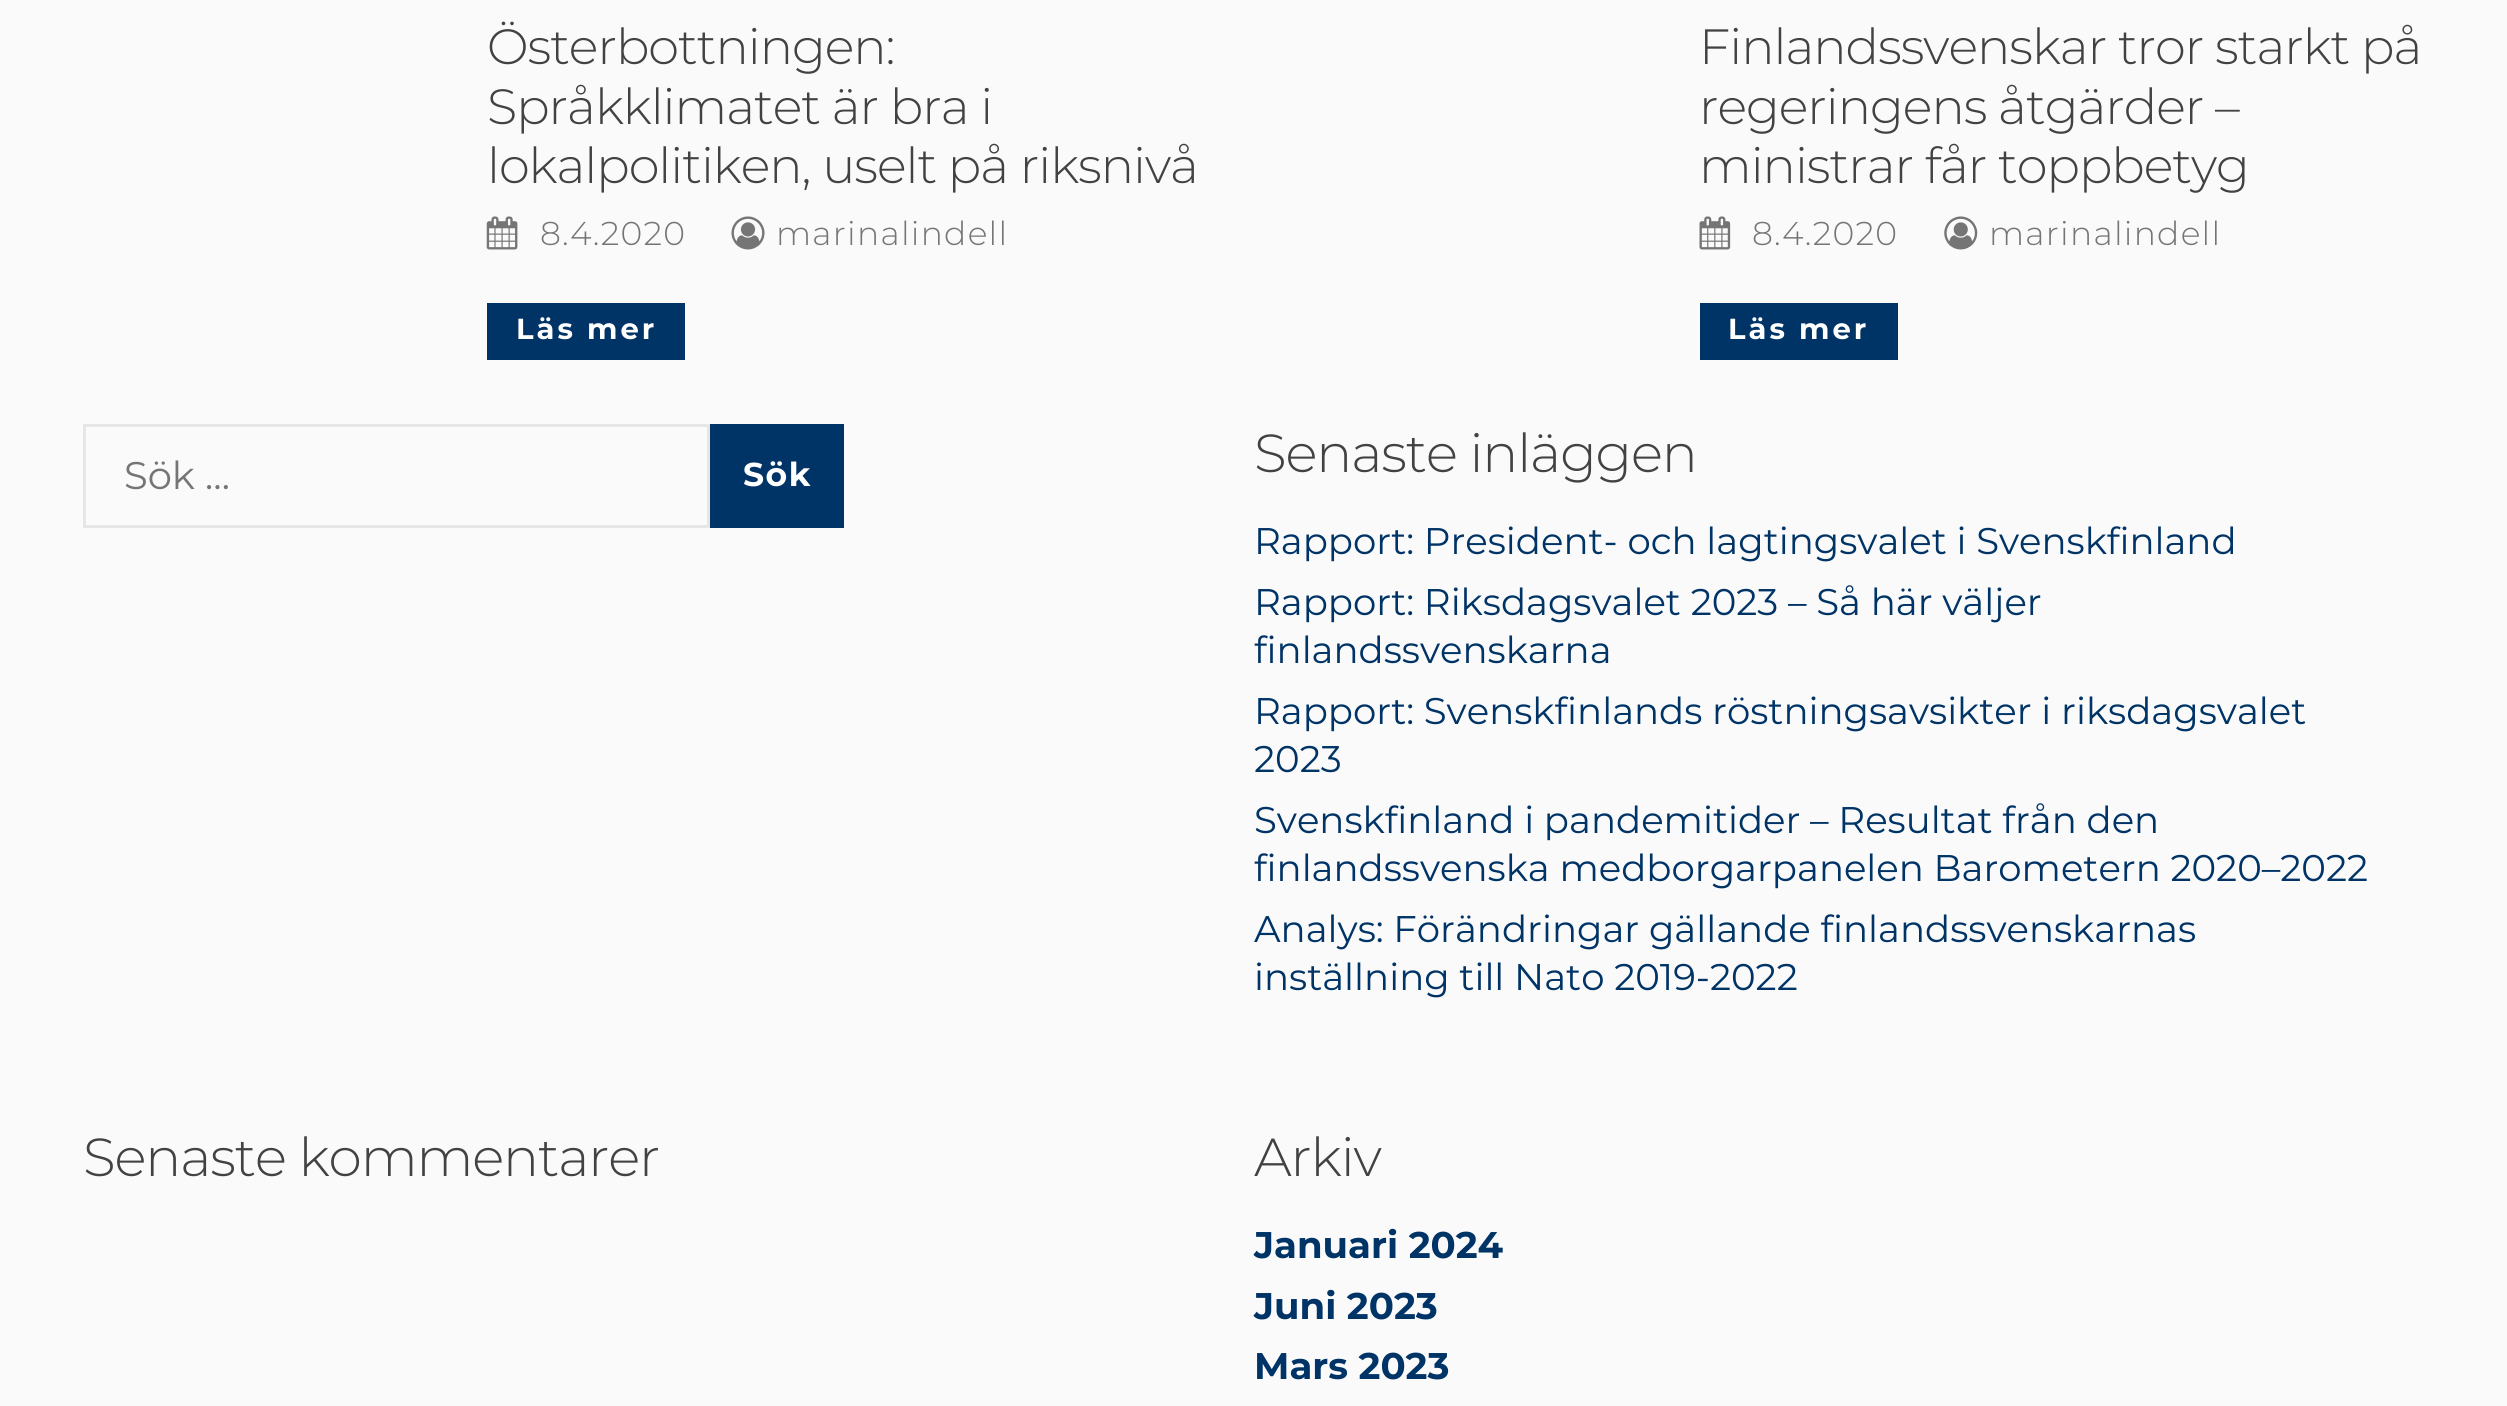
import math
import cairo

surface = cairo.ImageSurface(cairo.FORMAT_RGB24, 2507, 1406)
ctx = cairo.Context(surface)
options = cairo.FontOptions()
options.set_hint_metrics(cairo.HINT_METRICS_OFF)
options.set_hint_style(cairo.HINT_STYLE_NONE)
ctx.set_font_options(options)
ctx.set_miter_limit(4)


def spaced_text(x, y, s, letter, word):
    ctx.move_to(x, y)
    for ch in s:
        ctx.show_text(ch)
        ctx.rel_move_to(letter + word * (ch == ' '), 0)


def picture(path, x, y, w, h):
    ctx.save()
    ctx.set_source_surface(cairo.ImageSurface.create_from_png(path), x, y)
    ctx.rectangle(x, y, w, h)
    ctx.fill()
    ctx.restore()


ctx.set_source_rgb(0.98, 0.98, 0.98)
ctx.paint()
ctx.select_font_face("Montserrat Light")
ctx.set_font_size(49.5)
ctx.set_source_rgb(0.263, 0.259, 0.259)
spaced_text(487, 64, "Österbottningen:", -1, 0)
spaced_text(487, 124, "Språkklimatet är bra i", -1, 0)
spaced_text(487, 183, "lokalpolitiken, uselt på riksnivå", -1, 0)
picture("img1.png", 486, 216, 32, 34)
ctx.set_font_size(33)
ctx.set_source_rgb(0.463, 0.459, 0.459)
spaced_text(540, 245, "8.4.2020", 1.25, 0)
picture("img2.png", 731, 216, 34, 34)
spaced_text(776, 245, "marinalindell", 1.25, 0)
ctx.set_source_rgb(0, 0.2, 0.4)
ctx.rectangle(487, 303, 198, 57)
ctx.fill()
ctx.select_font_face("Montserrat", cairo.FONT_SLANT_NORMAL, cairo.FONT_WEIGHT_BOLD)
ctx.set_font_size(29)
ctx.set_source_rgb(1, 1, 1)
spaced_text(516, 339, "Läs mer", 3, 0)
ctx.select_font_face("Montserrat Light")
ctx.set_font_size(49.5)
ctx.set_source_rgb(0.263, 0.259, 0.259)
spaced_text(1699, 64, "Finlandssvenskar tror starkt på", -1, 0)
spaced_text(1699, 124, "regeringens åtgärder –", -1, 0)
spaced_text(1699, 183, "ministrar får toppbetyg", -1, 0)
picture("img3.png", 1699, 216, 32, 34)
ctx.set_font_size(33)
ctx.set_source_rgb(0.463, 0.459, 0.459)
spaced_text(1752, 245, "8.4.2020", 1.25, 0)
picture("img4.png", 1944, 216, 34, 34)
spaced_text(1989, 245, "marinalindell", 1.25, 0)
ctx.set_source_rgb(0, 0.2, 0.4)
ctx.rectangle(1700, 303, 198, 57)
ctx.fill()
ctx.select_font_face("Montserrat", cairo.FONT_SLANT_NORMAL, cairo.FONT_WEIGHT_BOLD)
ctx.set_font_size(29)
ctx.set_source_rgb(1, 1, 1)
spaced_text(1728, 339, "Läs mer", 3, 0)
ctx.rectangle(84.5, 425.5, 624, 101)
ctx.set_source_rgb(0.902, 0.902, 0.902)
ctx.set_line_width(3)
ctx.stroke()
ctx.select_font_face("Montserrat")
ctx.set_font_size(38.5)
ctx.set_source_rgb(0.463, 0.459, 0.459)
ctx.move_to(124, 489)
ctx.show_text("Sök …")
ctx.set_source_rgb(0, 0.2, 0.4)
ctx.rectangle(710, 424, 134, 104)
ctx.fill()
ctx.select_font_face("Montserrat", cairo.FONT_SLANT_NORMAL, cairo.FONT_WEIGHT_BOLD)
ctx.set_font_size(33)
ctx.set_source_rgb(1, 1, 1)
spaced_text(743, 486, "Sök", 1.5, 0)
ctx.select_font_face("Montserrat Light")
ctx.set_font_size(53.5)
ctx.set_source_rgb(0.263, 0.259, 0.259)
spaced_text(1254, 472, "Senaste inläggen", -1.1, 0)
ctx.select_font_face("Montserrat")
ctx.set_font_size(37.1)
ctx.set_source_rgb(0, 0.2, 0.4)
ctx.move_to(1254, 554)
ctx.show_text("Rapport: President- och lagtingsvalet i Svenskfinland")
ctx.move_to(1254, 615)
ctx.show_text("Rapport: Riksdagsvalet 2023 – Så här väljer")
ctx.move_to(1254, 663)
ctx.show_text("finlandssvenskarna")
ctx.move_to(1254, 724)
ctx.show_text("Rapport: Svenskfinlands röstningsavsikter i riksdagsvalet")
ctx.move_to(1254, 772)
ctx.show_text("2023")
ctx.move_to(1254, 833)
ctx.show_text("Svenskfinland i pandemitider – Resultat från den")
ctx.move_to(1254, 881)
ctx.show_text("finlandssvenska medborgarpanelen Barometern 2020–2022")
ctx.move_to(1254, 942)
ctx.show_text("Analys: Förändringar gällande finlandssvenskarnas")
ctx.move_to(1254, 990)
ctx.show_text("inställning till Nato 2019-2022")
ctx.select_font_face("Montserrat Light")
ctx.set_font_size(53.5)
ctx.set_source_rgb(0.263, 0.259, 0.259)
spaced_text(83, 1176, "Senaste kommentarer", -1.1, 0)
spaced_text(1254, 1176, "Arkiv", -1.1, 0)
ctx.select_font_face("Montserrat", cairo.FONT_SLANT_NORMAL, cairo.FONT_WEIGHT_BOLD)
ctx.set_font_size(37.1)
ctx.set_source_rgb(0, 0.2, 0.4)
ctx.move_to(1254, 1258)
ctx.show_text("Januari 2024")
ctx.move_to(1254, 1319)
ctx.show_text("Juni 2023")
ctx.move_to(1254, 1379)
ctx.show_text("Mars 2023")
surface.write_to_png("page.png")
